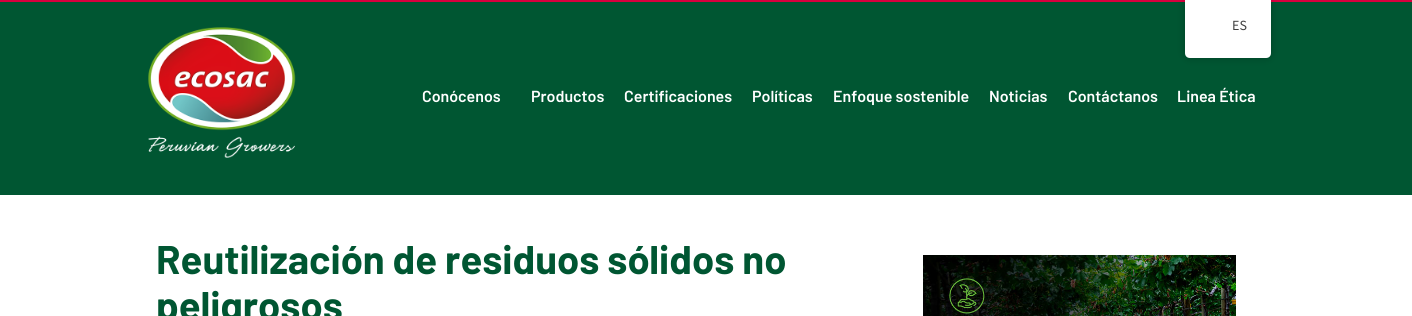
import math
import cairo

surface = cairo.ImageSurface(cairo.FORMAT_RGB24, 1412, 316)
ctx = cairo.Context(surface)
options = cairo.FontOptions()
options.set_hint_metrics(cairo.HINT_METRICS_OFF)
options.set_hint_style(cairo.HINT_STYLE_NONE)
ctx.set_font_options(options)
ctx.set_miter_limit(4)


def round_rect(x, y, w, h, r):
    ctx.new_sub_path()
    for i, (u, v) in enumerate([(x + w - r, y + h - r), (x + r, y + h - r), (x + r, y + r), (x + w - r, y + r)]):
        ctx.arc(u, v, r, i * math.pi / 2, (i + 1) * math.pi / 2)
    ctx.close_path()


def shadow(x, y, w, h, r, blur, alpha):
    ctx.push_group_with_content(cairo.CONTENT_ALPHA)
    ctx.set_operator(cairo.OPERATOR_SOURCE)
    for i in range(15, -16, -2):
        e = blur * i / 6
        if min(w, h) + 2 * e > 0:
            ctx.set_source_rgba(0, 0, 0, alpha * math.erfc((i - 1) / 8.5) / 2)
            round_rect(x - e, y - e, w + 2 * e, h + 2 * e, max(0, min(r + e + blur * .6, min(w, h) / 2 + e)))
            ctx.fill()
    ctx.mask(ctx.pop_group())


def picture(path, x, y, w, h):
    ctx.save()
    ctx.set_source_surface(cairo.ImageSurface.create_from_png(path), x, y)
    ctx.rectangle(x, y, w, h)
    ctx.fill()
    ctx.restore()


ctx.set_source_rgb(1, 1, 1)
ctx.paint()
ctx.set_source_rgb(0, 0.337, 0.196)
ctx.rectangle(0, 2, 1412, 193)
ctx.fill()
ctx.set_source_rgb(0.851, 0, 0.243)
ctx.rectangle(0, 0, 1412, 2)
ctx.fill()
ctx.set_source_rgb(0, 0, 0)
shadow(1185, 0, 86, 58, 5, 4, 0.25)
ctx.set_source_rgb(1, 1, 1)
ctx.new_path()
ctx.move_to(1185, 0)
ctx.line_to(1271, 0)
ctx.line_to(1271, 53)
ctx.curve_to(1271, 56, 1269, 58, 1266, 58)
ctx.line_to(1190, 58)
ctx.curve_to(1187, 58, 1185, 56, 1185, 53)
ctx.close_path()
ctx.fill()
ctx.select_font_face("Source Sans Pro")
ctx.set_font_size(14)
ctx.set_source_rgb(0.251, 0.251, 0.251)
ctx.move_to(1232, 30)
ctx.show_text("ES")
picture("img1.png", 148, 27, 148, 131)
ctx.select_font_face("Barlow SemiBold")
ctx.set_font_size(16)
ctx.set_source_rgb(1, 1, 1)
ctx.move_to(422, 102)
ctx.show_text("Conócenos")
ctx.move_to(531, 102)
ctx.show_text("Productos")
ctx.move_to(624, 102)
ctx.show_text("Certificaciones")
ctx.move_to(752, 102)
ctx.show_text("Políticas")
ctx.move_to(833, 102)
ctx.show_text("Enfoque sostenible")
ctx.move_to(989, 102)
ctx.show_text("Noticias")
ctx.move_to(1068, 102)
ctx.show_text("Contáctanos")
ctx.move_to(1177, 102)
ctx.show_text("Linea Ética")
ctx.select_font_face("Barlow", cairo.FONT_SLANT_NORMAL, cairo.FONT_WEIGHT_BOLD)
ctx.set_font_size(40)
ctx.set_source_rgb(0, 0.337, 0.196)
ctx.move_to(156, 274)
ctx.show_text("Reutilización de residuos sólidos no")
ctx.move_to(156, 320)
ctx.show_text("peligrosos")
picture("img2.png", 923, 255, 313, 61)
surface.write_to_png("page.png")
